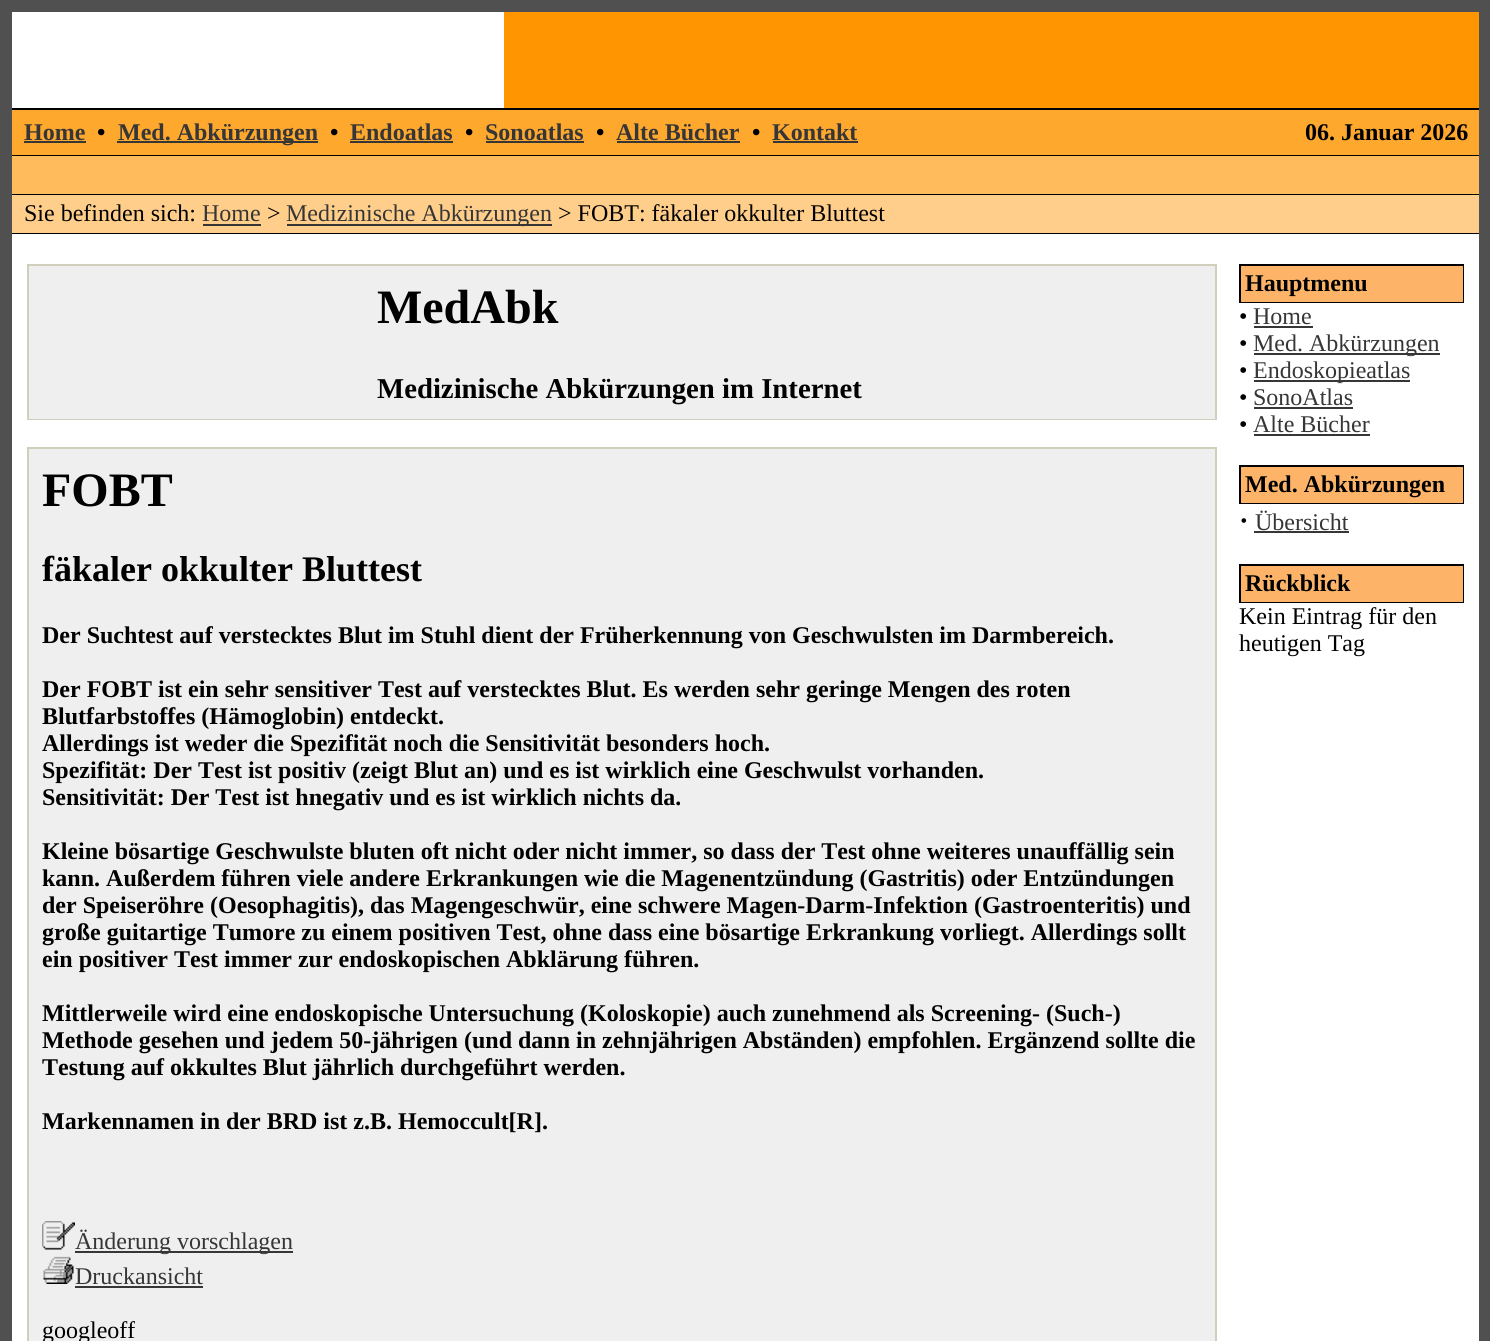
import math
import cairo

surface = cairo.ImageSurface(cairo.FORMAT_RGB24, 1490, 1341)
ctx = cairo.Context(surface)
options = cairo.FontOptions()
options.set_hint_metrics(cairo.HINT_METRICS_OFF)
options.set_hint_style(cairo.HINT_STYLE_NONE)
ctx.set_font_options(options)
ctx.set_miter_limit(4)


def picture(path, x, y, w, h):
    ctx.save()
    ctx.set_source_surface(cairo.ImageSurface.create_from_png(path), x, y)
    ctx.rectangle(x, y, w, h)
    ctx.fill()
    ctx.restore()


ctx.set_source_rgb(0.314, 0.314, 0.314)
ctx.paint()
ctx.set_source_rgb(1, 1, 1)
ctx.rectangle(12, 12, 492, 96)
ctx.fill()
ctx.set_source_rgb(1, 0.584, 0)
ctx.rectangle(504, 12, 975, 96)
ctx.fill()
ctx.set_source_rgb(1, 0.659, 0.18)
ctx.rectangle(12, 110, 1467, 45)
ctx.fill()
ctx.set_source_rgb(0, 0, 0)
ctx.rectangle(12, 108, 1467, 2)
ctx.fill()
ctx.select_font_face("Liberation Serif", cairo.FONT_SLANT_NORMAL, cairo.FONT_WEIGHT_BOLD)
ctx.set_font_size(24)
ctx.set_source_rgb(0.212, 0.212, 0.212)
ctx.move_to(24, 140)
ctx.show_text("Home")
ctx.rectangle(24, 141, 62, 2)
ctx.fill()
ctx.set_source_rgb(0, 0, 0)
ctx.move_to(97, 140)
ctx.show_text("•")
ctx.set_source_rgb(0.212, 0.212, 0.212)
ctx.rectangle(117, 141, 201, 2)
ctx.fill()
ctx.move_to(118, 140)
ctx.show_text("Med. Abkürzungen")
ctx.set_source_rgb(0, 0, 0)
ctx.move_to(330, 140)
ctx.show_text("•")
ctx.set_source_rgb(0.212, 0.212, 0.212)
ctx.move_to(350, 140)
ctx.show_text("Endoatlas")
ctx.rectangle(350, 141, 103, 2)
ctx.fill()
ctx.set_source_rgb(0, 0, 0)
ctx.move_to(465, 140)
ctx.show_text("•")
ctx.set_source_rgb(0.212, 0.212, 0.212)
ctx.move_to(485, 140)
ctx.show_text("Sonoatlas")
ctx.rectangle(486, 141, 98, 2)
ctx.fill()
ctx.set_source_rgb(0, 0, 0)
ctx.move_to(596, 140)
ctx.show_text("•")
ctx.set_source_rgb(0.212, 0.212, 0.212)
ctx.move_to(616, 140)
ctx.show_text("Alte Bücher")
ctx.rectangle(617, 141, 123, 2)
ctx.fill()
ctx.set_source_rgb(0, 0, 0)
ctx.move_to(752, 140)
ctx.show_text("•")
ctx.set_source_rgb(0.212, 0.212, 0.212)
ctx.move_to(772, 140)
ctx.show_text("Kontakt")
ctx.rectangle(773, 141, 85, 2)
ctx.fill()
ctx.set_source_rgb(0, 0, 0)
ctx.move_to(1305, 140)
ctx.show_text("06. Januar 2026")
ctx.rectangle(12, 155, 1467, 1)
ctx.fill()
ctx.set_source_rgb(1, 0.733, 0.361)
ctx.rectangle(12, 156, 1467, 38)
ctx.fill()
ctx.set_source_rgb(0, 0, 0)
ctx.rectangle(12, 194, 1467, 1)
ctx.fill()
ctx.set_source_rgb(1, 0.808, 0.541)
ctx.rectangle(12, 195, 1467, 38)
ctx.fill()
ctx.select_font_face("Liberation Serif")
ctx.set_source_rgb(0, 0, 0)
ctx.move_to(24, 221)
ctx.show_text("Sie befinden sich:")
ctx.set_source_rgb(0.212, 0.212, 0.212)
ctx.move_to(202, 221)
ctx.show_text("Home")
ctx.rectangle(203, 224, 58, 2)
ctx.fill()
ctx.set_source_rgb(0, 0, 0)
ctx.move_to(267, 221)
ctx.show_text(">")
ctx.set_source_rgb(0.212, 0.212, 0.212)
ctx.rectangle(287, 224, 265, 2)
ctx.fill()
ctx.move_to(286, 221)
ctx.show_text("Medizinische Abkürzungen")
ctx.set_source_rgb(0, 0, 0)
ctx.move_to(558, 221)
ctx.show_text("> FOBT: fäkaler okkulter Bluttest")
ctx.rectangle(12, 233, 1467, 1)
ctx.fill()
ctx.set_source_rgb(1, 1, 1)
ctx.rectangle(12, 234, 1467, 1107)
ctx.fill()
ctx.set_source_rgb(0.812, 0.812, 0.733)
ctx.rectangle(27, 264, 1190, 156)
ctx.fill()
ctx.set_source_rgb(0.937, 0.937, 0.937)
ctx.rectangle(29, 266, 1186, 153)
ctx.fill()
ctx.select_font_face("Liberation Serif", cairo.FONT_SLANT_NORMAL, cairo.FONT_WEIGHT_BOLD)
ctx.set_font_size(48)
ctx.set_source_rgb(0, 0, 0)
ctx.move_to(377, 323)
ctx.show_text("MedAbk")
ctx.set_font_size(28.75)
ctx.move_to(377, 398)
ctx.show_text("Medizinische Abkürzungen im Internet")
ctx.set_source_rgb(0.812, 0.812, 0.733)
ctx.rectangle(27, 447, 1190, 894)
ctx.fill()
ctx.set_source_rgb(0.937, 0.937, 0.937)
ctx.rectangle(29, 449, 1186, 892)
ctx.fill()
ctx.set_font_size(48)
ctx.set_source_rgb(0, 0, 0)
ctx.move_to(42, 506)
ctx.show_text("FOBT")
ctx.set_font_size(36)
ctx.move_to(42, 581)
ctx.show_text("fäkaler okkulter Bluttest")
ctx.set_font_size(24)
ctx.move_to(42, 643)
ctx.show_text("Der Suchtest auf verstecktes Blut im Stuhl dient der Früherkennung von Geschwulsten im Darmbereich.")
ctx.move_to(42, 697)
ctx.show_text("Der FOBT ist ein sehr sensitiver Test auf verstecktes Blut. Es werden sehr geringe Mengen des roten")
ctx.move_to(42, 724)
ctx.show_text("Blutfarbstoffes (Hämoglobin) entdeckt.")
ctx.move_to(42, 751)
ctx.show_text("Allerdings ist weder die Spezifität noch die Sensitivität besonders hoch.")
ctx.move_to(42, 778)
ctx.show_text("Spezifität: Der Test ist positiv (zeigt Blut an) und es ist wirklich eine Geschwulst vorhanden.")
ctx.move_to(42, 805)
ctx.show_text("Sensitivität: Der Test ist hnegativ und es ist wirklich nichts da.")
ctx.move_to(42, 859)
ctx.show_text("Kleine bösartige Geschwulste bluten oft nicht oder nicht immer, so dass der Test ohne weiteres unauffällig sein")
ctx.move_to(42, 886)
ctx.show_text("kann. Außerdem führen viele andere Erkrankungen wie die Magenentzündung (Gastritis) oder Entzündungen")
ctx.move_to(42, 913)
ctx.show_text("der Speiseröhre (Oesophagitis), das Magengeschwür, eine schwere Magen-Darm-Infektion (Gastroenteritis) und")
ctx.move_to(42, 940)
ctx.show_text("große guitartige Tumore zu einem positiven Test, ohne dass eine bösartige Erkrankung vorliegt. Allerdings sollt")
ctx.move_to(42, 967)
ctx.show_text("ein positiver Test immer zur endoskopischen Abklärung führen.")
ctx.move_to(42, 1021)
ctx.show_text("Mittlerweile wird eine endoskopische Untersuchung (Koloskopie) auch zunehmend als Screening- (Such-)")
ctx.move_to(42, 1048)
ctx.show_text("Methode gesehen und jedem 50-jährigen (und dann in zehnjährigen Abständen) empfohlen. Ergänzend sollte die")
ctx.move_to(42, 1075)
ctx.show_text("Testung auf okkultes Blut jährlich durchgeführt werden.")
ctx.move_to(42, 1129)
ctx.show_text("Markennamen in der BRD ist z.B. Hemoccult[R].")
picture("img1.png", 42, 1221, 33, 29)
ctx.set_source_rgb(0.212, 0.212, 0.212)
ctx.rectangle(75, 1251, 218, 2)
ctx.fill()
ctx.select_font_face("Liberation Serif")
ctx.move_to(75, 1249)
ctx.show_text("Änderung vorschlagen")
picture("img2.png", 43, 1256, 31, 28)
ctx.move_to(75, 1284)
ctx.show_text("Druckansicht")
ctx.rectangle(75, 1286, 128, 2)
ctx.fill()
ctx.set_source_rgb(0, 0, 0)
ctx.move_to(42, 1338)
ctx.show_text("googleoff")
ctx.rectangle(1239, 264, 225, 39)
ctx.fill()
ctx.set_source_rgb(0.992, 0.706, 0.408)
ctx.rectangle(1241, 266, 222, 36)
ctx.fill()
ctx.select_font_face("Liberation Serif", cairo.FONT_SLANT_NORMAL, cairo.FONT_WEIGHT_BOLD)
ctx.set_source_rgb(0, 0, 0)
ctx.move_to(1245, 291)
ctx.show_text("Hauptmenu")
ctx.select_font_face("Liberation Serif")
ctx.move_to(1239, 324)
ctx.show_text("•")
ctx.set_source_rgb(0.212, 0.212, 0.212)
ctx.move_to(1253, 324)
ctx.show_text("Home")
ctx.rectangle(1254, 326, 59, 2)
ctx.fill()
ctx.set_source_rgb(0, 0, 0)
ctx.move_to(1239, 351)
ctx.show_text("•")
ctx.set_source_rgb(0.212, 0.212, 0.212)
ctx.rectangle(1254, 353, 186, 2)
ctx.fill()
ctx.move_to(1253, 351)
ctx.show_text("Med. Abkürzungen")
ctx.set_source_rgb(0, 0, 0)
ctx.move_to(1239, 378)
ctx.show_text("•")
ctx.set_source_rgb(0.212, 0.212, 0.212)
ctx.rectangle(1254, 380, 156, 2)
ctx.fill()
ctx.move_to(1253, 378)
ctx.show_text("Endoskopieatlas")
ctx.set_source_rgb(0, 0, 0)
ctx.move_to(1239, 405)
ctx.show_text("•")
ctx.set_source_rgb(0.212, 0.212, 0.212)
ctx.move_to(1253, 405)
ctx.show_text("SonoAtlas")
ctx.rectangle(1254, 407, 99, 2)
ctx.fill()
ctx.set_source_rgb(0, 0, 0)
ctx.move_to(1239, 432)
ctx.show_text("•")
ctx.set_source_rgb(0.212, 0.212, 0.212)
ctx.move_to(1253, 432)
ctx.show_text("Alte Bücher")
ctx.rectangle(1254, 434, 116, 2)
ctx.fill()
ctx.set_source_rgb(0, 0, 0)
ctx.rectangle(1239, 465, 225, 39)
ctx.fill()
ctx.set_source_rgb(0.992, 0.706, 0.408)
ctx.rectangle(1241, 467, 222, 36)
ctx.fill()
ctx.select_font_face("Liberation Serif", cairo.FONT_SLANT_NORMAL, cairo.FONT_WEIGHT_BOLD)
ctx.set_source_rgb(0, 0, 0)
ctx.move_to(1245, 492)
ctx.show_text("Med. Abkürzungen")
ctx.set_font_size(28.75)
ctx.move_to(1239, 530)
ctx.show_text("·")
ctx.select_font_face("Liberation Serif")
ctx.set_font_size(24)
ctx.set_source_rgb(0.212, 0.212, 0.212)
ctx.move_to(1255, 530)
ctx.show_text("Übersicht")
ctx.rectangle(1254, 531, 95, 2)
ctx.fill()
ctx.set_source_rgb(0, 0, 0)
ctx.rectangle(1239, 564, 225, 39)
ctx.fill()
ctx.set_source_rgb(0.992, 0.706, 0.408)
ctx.rectangle(1241, 566, 222, 36)
ctx.fill()
ctx.select_font_face("Liberation Serif", cairo.FONT_SLANT_NORMAL, cairo.FONT_WEIGHT_BOLD)
ctx.set_source_rgb(0, 0, 0)
ctx.move_to(1245, 591)
ctx.show_text("Rückblick")
ctx.select_font_face("Liberation Serif")
ctx.move_to(1239, 624)
ctx.show_text("Kein Eintrag für den")
ctx.move_to(1239, 651)
ctx.show_text("heutigen Tag")
surface.write_to_png("page.png")
